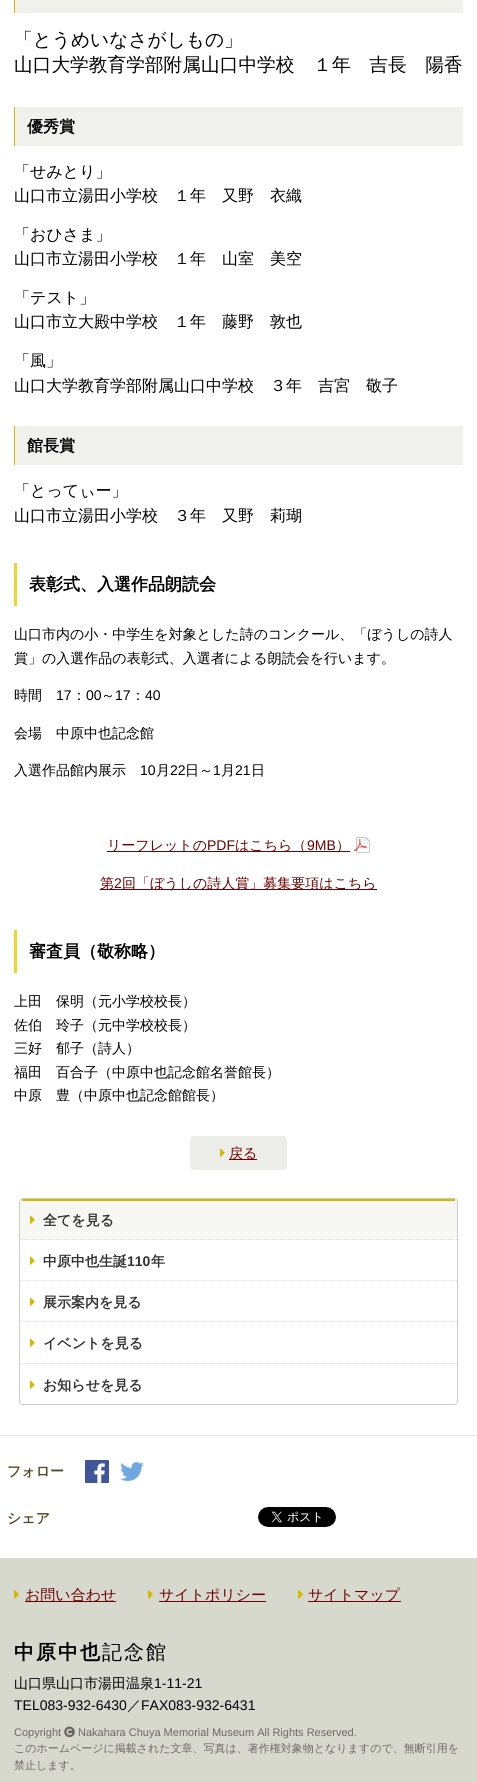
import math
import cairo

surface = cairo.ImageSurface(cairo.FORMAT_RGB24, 477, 1782)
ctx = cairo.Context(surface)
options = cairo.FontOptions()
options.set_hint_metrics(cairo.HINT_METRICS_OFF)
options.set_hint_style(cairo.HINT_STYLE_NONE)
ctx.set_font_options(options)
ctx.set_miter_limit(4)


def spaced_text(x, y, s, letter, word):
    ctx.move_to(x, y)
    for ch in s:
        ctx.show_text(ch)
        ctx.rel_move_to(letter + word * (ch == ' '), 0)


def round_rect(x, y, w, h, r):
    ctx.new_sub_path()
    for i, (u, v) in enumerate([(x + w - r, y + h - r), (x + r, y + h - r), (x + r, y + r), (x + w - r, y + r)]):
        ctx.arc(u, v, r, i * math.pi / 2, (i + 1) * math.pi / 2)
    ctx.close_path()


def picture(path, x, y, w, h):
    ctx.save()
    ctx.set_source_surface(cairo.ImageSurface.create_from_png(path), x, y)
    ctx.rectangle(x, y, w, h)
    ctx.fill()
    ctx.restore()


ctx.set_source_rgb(1, 1, 1)
ctx.paint()
ctx.set_source_rgb(0.941, 0.945, 0.925)
ctx.rectangle(15, 0, 448, 13)
ctx.fill()
ctx.set_source_rgb(0.835, 0.725, 0)
ctx.rectangle(14, 0, 1, 13)
ctx.fill()
ctx.select_font_face("WenQuanYi Zen Hei Medium")
ctx.set_font_size(18.7)
ctx.set_source_rgb(0, 0, 0)
ctx.move_to(14, 46)
ctx.show_text("「とうめいなさがしもの」")
ctx.move_to(14, 71)
ctx.show_text("山口大学教育学部附属山口中学校　１年　吉長　陽香")
ctx.set_source_rgb(0.941, 0.945, 0.925)
ctx.rectangle(15, 107, 448, 39)
ctx.fill()
ctx.set_source_rgb(0.835, 0.725, 0)
ctx.rectangle(14, 107, 1, 39)
ctx.fill()
ctx.select_font_face("WenQuanYi Zen Hei", cairo.FONT_SLANT_NORMAL, cairo.FONT_WEIGHT_BOLD)
ctx.set_font_size(16)
ctx.set_source_rgb(0, 0, 0)
ctx.move_to(27, 132)
ctx.show_text("優秀賞")
ctx.select_font_face("WenQuanYi Zen Hei Medium")
ctx.move_to(14, 177)
ctx.show_text("「せみとり」")
ctx.move_to(14, 201)
ctx.show_text("山口市立湯田小学校　１年　又野　衣織")
ctx.move_to(14, 240)
ctx.show_text("「おひさま」")
ctx.move_to(14, 264)
ctx.show_text("山口市立湯田小学校　１年　山室　美空")
ctx.move_to(14, 303)
ctx.show_text("「テスト」")
ctx.move_to(14, 327)
ctx.show_text("山口市立大殿中学校　１年　藤野　敦也")
ctx.move_to(14, 366)
ctx.show_text("「風」")
ctx.move_to(14, 391)
ctx.show_text("山口大学教育学部附属山口中学校　３年　吉宮　敬子")
ctx.set_source_rgb(0.941, 0.945, 0.925)
ctx.rectangle(15, 426, 448, 39)
ctx.fill()
ctx.set_source_rgb(0.835, 0.725, 0)
ctx.rectangle(14, 426, 1, 39)
ctx.fill()
ctx.select_font_face("WenQuanYi Zen Hei", cairo.FONT_SLANT_NORMAL, cairo.FONT_WEIGHT_BOLD)
ctx.set_source_rgb(0, 0, 0)
ctx.move_to(27, 451)
ctx.show_text("館長賞")
ctx.select_font_face("WenQuanYi Zen Hei Medium")
ctx.move_to(14, 496)
ctx.show_text("「とってぃー」")
ctx.move_to(14, 521)
ctx.show_text("山口市立湯田小学校　３年　又野　莉瑚")
ctx.set_source_rgb(0.941, 0.839, 0.165)
ctx.rectangle(14, 563, 3, 43)
ctx.fill()
ctx.select_font_face("WenQuanYi Zen Hei", cairo.FONT_SLANT_NORMAL, cairo.FONT_WEIGHT_BOLD)
ctx.set_font_size(17)
ctx.set_source_rgb(0, 0, 0)
ctx.move_to(29, 590)
ctx.show_text("表彰式、入選作品朗読会")
ctx.select_font_face("WenQuanYi Zen Hei Medium")
ctx.set_font_size(14)
ctx.move_to(14, 639)
ctx.show_text("山口市内の小・中学生を対象とした詩のコンクール、「ぼうしの詩人")
ctx.move_to(14, 663)
ctx.show_text("賞」の入選作品の表彰式、入選者による朗読会を行います。")
ctx.move_to(14, 700)
ctx.show_text("時間")
ctx.select_font_face("Liberation Sans")
ctx.move_to(56, 700)
ctx.show_text("17")
ctx.select_font_face("WenQuanYi Zen Hei Medium")
ctx.move_to(72, 700)
ctx.show_text("：")
ctx.select_font_face("Liberation Sans")
ctx.move_to(86, 700)
ctx.show_text("00")
ctx.select_font_face("WenQuanYi Zen Hei Medium")
ctx.move_to(101, 700)
ctx.show_text("～")
ctx.select_font_face("Liberation Sans")
ctx.move_to(115, 700)
ctx.show_text("17")
ctx.select_font_face("WenQuanYi Zen Hei Medium")
ctx.move_to(131, 700)
ctx.show_text("：")
ctx.select_font_face("Liberation Sans")
ctx.move_to(145, 700)
ctx.show_text("40")
ctx.select_font_face("WenQuanYi Zen Hei Medium")
ctx.move_to(14, 738)
ctx.show_text("会場　中原中也記念館")
ctx.move_to(14, 775)
ctx.show_text("入選作品館内展示")
ctx.select_font_face("Liberation Sans")
ctx.move_to(140, 775)
ctx.show_text("10")
ctx.select_font_face("WenQuanYi Zen Hei Medium")
ctx.move_to(156, 775)
ctx.show_text("月")
ctx.select_font_face("Liberation Sans")
ctx.move_to(170, 775)
ctx.show_text("22")
ctx.select_font_face("WenQuanYi Zen Hei Medium")
ctx.move_to(185, 775)
ctx.show_text("日～")
ctx.select_font_face("Liberation Sans")
ctx.move_to(213, 775)
ctx.show_text("1")
ctx.select_font_face("WenQuanYi Zen Hei Medium")
ctx.move_to(221, 775)
ctx.show_text("月")
ctx.select_font_face("Liberation Sans")
ctx.move_to(235, 775)
ctx.show_text("21")
ctx.select_font_face("WenQuanYi Zen Hei Medium")
ctx.move_to(251, 775)
ctx.show_text("日")
ctx.set_source_rgb(0.431, 0, 0)
ctx.rectangle(107, 851, 243, 1)
ctx.fill()
ctx.move_to(107, 850)
ctx.show_text("リーフレットの")
ctx.select_font_face("Liberation Sans")
ctx.move_to(207, 850)
ctx.show_text("PDF")
ctx.select_font_face("WenQuanYi Zen Hei Medium")
ctx.move_to(235, 850)
ctx.show_text("はこちら（")
ctx.select_font_face("Liberation Sans")
ctx.move_to(307, 850)
ctx.show_text("9MB")
ctx.select_font_face("WenQuanYi Zen Hei Medium")
ctx.move_to(336, 850)
ctx.show_text("）")
picture("img1.png", 354, 837, 16, 16)
ctx.rectangle(100, 889, 277, 1)
ctx.fill()
ctx.move_to(100, 888)
ctx.show_text("第")
ctx.select_font_face("Liberation Sans")
ctx.move_to(114, 888)
ctx.show_text("2")
ctx.select_font_face("WenQuanYi Zen Hei Medium")
ctx.move_to(122, 888)
ctx.show_text("回「ぼうしの詩人賞」募集要項はこちら")
ctx.set_source_rgb(0.941, 0.839, 0.165)
ctx.rectangle(14, 930, 3, 43)
ctx.fill()
ctx.select_font_face("WenQuanYi Zen Hei", cairo.FONT_SLANT_NORMAL, cairo.FONT_WEIGHT_BOLD)
ctx.set_font_size(17)
ctx.set_source_rgb(0, 0, 0)
ctx.move_to(29, 957)
ctx.show_text("審査員（敬称略）")
ctx.select_font_face("WenQuanYi Zen Hei Medium")
ctx.set_font_size(14)
ctx.move_to(14, 1006)
ctx.show_text("上田　保明（元小学校校長）")
ctx.move_to(14, 1030)
ctx.show_text("佐伯　玲子（元中学校校長）")
ctx.move_to(14, 1053)
ctx.show_text("三好　郁子（詩人）")
ctx.move_to(14, 1077)
ctx.show_text("福田　百合子（中原中也記念館名誉館長）")
ctx.move_to(14, 1100)
ctx.show_text("中原　豊（中原中也記念館館長）")
ctx.set_source_rgb(0.925, 0.929, 0.91)
round_rect(190, 1136, 97, 34, 4)
ctx.fill()
picture("img2.png", 220, 1148, 5, 9)
ctx.set_source_rgb(0.431, 0, 0)
ctx.rectangle(229, 1159, 28, 1)
ctx.fill()
ctx.move_to(229, 1158)
ctx.show_text("戻る")
round_rect(19.5, 1198.5, 438, 206, 3.5)
ctx.set_source_rgb(0.8, 0.8, 0.8)
ctx.set_line_width(1)
ctx.stroke()
ctx.new_path()
ctx.move_to(20, 1239.5)
ctx.line_to(457, 1239.5)
ctx.set_source_rgb(0.867, 0.867, 0.867)
ctx.set_dash([1, 1])
ctx.stroke()
ctx.set_source_rgb(0.965, 0.969, 0.957)
round_rect(20, 1199, 437, 40, 4)
ctx.fill()
ctx.set_source_rgb(0.835, 0.725, 0)
ctx.rectangle(22, 1199, 433, 2)
ctx.fill()
picture("img3.png", 30, 1215, 5, 9)
ctx.select_font_face("WenQuanYi Zen Hei", cairo.FONT_SLANT_NORMAL, cairo.FONT_WEIGHT_BOLD)
ctx.set_source_rgb(0.2, 0.2, 0.2)
ctx.move_to(43, 1225)
ctx.show_text("全てを見る")
ctx.new_path()
ctx.move_to(20, 1280.5)
ctx.line_to(457, 1280.5)
ctx.set_source_rgb(0.867, 0.867, 0.867)
ctx.stroke()
picture("img4.png", 30, 1256, 5, 9)
ctx.set_source_rgb(0.2, 0.2, 0.2)
ctx.move_to(43, 1266)
ctx.show_text("中原中也生誕")
ctx.select_font_face("Liberation Sans", cairo.FONT_SLANT_NORMAL, cairo.FONT_WEIGHT_BOLD)
ctx.move_to(127, 1266)
ctx.show_text("110")
ctx.select_font_face("WenQuanYi Zen Hei", cairo.FONT_SLANT_NORMAL, cairo.FONT_WEIGHT_BOLD)
ctx.move_to(151, 1266)
ctx.show_text("年")
ctx.new_path()
ctx.move_to(20, 1321.5)
ctx.line_to(457, 1321.5)
ctx.set_source_rgb(0.867, 0.867, 0.867)
ctx.stroke()
picture("img4.png", 30, 1297, 5, 9)
ctx.set_source_rgb(0.2, 0.2, 0.2)
ctx.move_to(43, 1307)
ctx.show_text("展示案内を見る")
ctx.new_path()
ctx.move_to(20, 1363.5)
ctx.line_to(457, 1363.5)
ctx.set_source_rgb(0.867, 0.867, 0.867)
ctx.stroke()
picture("img4.png", 30, 1338, 5, 9)
ctx.set_source_rgb(0.2, 0.2, 0.2)
ctx.move_to(43, 1348)
ctx.show_text("イベントを見る")
ctx.set_source_rgb(1, 1, 1)
round_rect(20, 1364, 437, 40, 4)
ctx.fill()
picture("img4.png", 30, 1380, 5, 9)
ctx.set_source_rgb(0.2, 0.2, 0.2)
ctx.move_to(43, 1390)
ctx.show_text("お知らせを見る")
ctx.set_source_rgb(0.906, 0.91, 0.886)
ctx.rectangle(0, 1435, 477, 1)
ctx.fill()
ctx.set_source_rgb(0.337, 0.286, 0.137)
ctx.move_to(7, 1476)
ctx.show_text("フォロー")
picture("img5.png", 85, 1460, 24, 23)
picture("img6.png", 120, 1461, 24, 21)
ctx.move_to(7, 1523)
ctx.show_text("シェア")
picture("img7.png", 258, 1507, 78, 20)
ctx.set_source_rgb(0.843, 0.851, 0.812)
ctx.rectangle(0, 1558, 477, 224)
ctx.fill()
picture("img8.png", 14, 1590, 5, 9)
ctx.set_source_rgb(0.431, 0, 0)
ctx.rectangle(25, 1601, 91, 1)
ctx.fill()
ctx.select_font_face("WenQuanYi Zen Hei Medium")
ctx.set_font_size(15)
ctx.move_to(25, 1600)
ctx.show_text("お問い合わせ")
picture("img8.png", 148, 1590, 5, 9)
ctx.rectangle(159, 1601, 107, 1)
ctx.fill()
ctx.move_to(159, 1600)
ctx.show_text("サイトポリシー")
picture("img8.png", 298, 1590, 5, 9)
ctx.rectangle(308, 1601, 93, 1)
ctx.fill()
ctx.move_to(308, 1600)
ctx.show_text("サイトマップ")
ctx.select_font_face("WenQuanYi Zen Hei", cairo.FONT_SLANT_NORMAL, cairo.FONT_WEIGHT_BOLD)
ctx.set_font_size(20)
ctx.set_source_rgb(0, 0, 0)
spaced_text(14, 1659, "中原中也", 2, 0)
ctx.select_font_face("WenQuanYi Zen Hei Medium")
spaced_text(102, 1659, "記念館", 2, 0)
ctx.set_font_size(14)
ctx.move_to(14, 1688)
ctx.show_text("山口県山口市湯田温泉")
ctx.select_font_face("Liberation Sans")
ctx.move_to(154, 1688)
ctx.show_text("1-11-21")
ctx.move_to(14, 1710)
ctx.show_text("TEL083-932-6430")
ctx.select_font_face("WenQuanYi Zen Hei Medium")
ctx.move_to(127, 1710)
ctx.show_text("／")
ctx.select_font_face("Liberation Sans")
ctx.move_to(141, 1710)
ctx.show_text("FAX083-932-6431")
ctx.set_font_size(11)
ctx.set_source_rgb(0.427, 0.4, 0.392)
ctx.move_to(14, 1736)
ctx.show_text("Copyright")
picture("img9.png", 64, 1726, 11, 12)
ctx.move_to(78, 1736)
ctx.show_text("Nakahara Chuya Memorial Museum All Rights Reserved.")
ctx.select_font_face("WenQuanYi Zen Hei Medium")
ctx.move_to(14, 1752)
ctx.show_text("このホームページに掲載された文章、写真は、著作権対象物となりますので、無断引用を")
ctx.move_to(14, 1769)
ctx.show_text("禁止します。")
surface.write_to_png("page.png")
